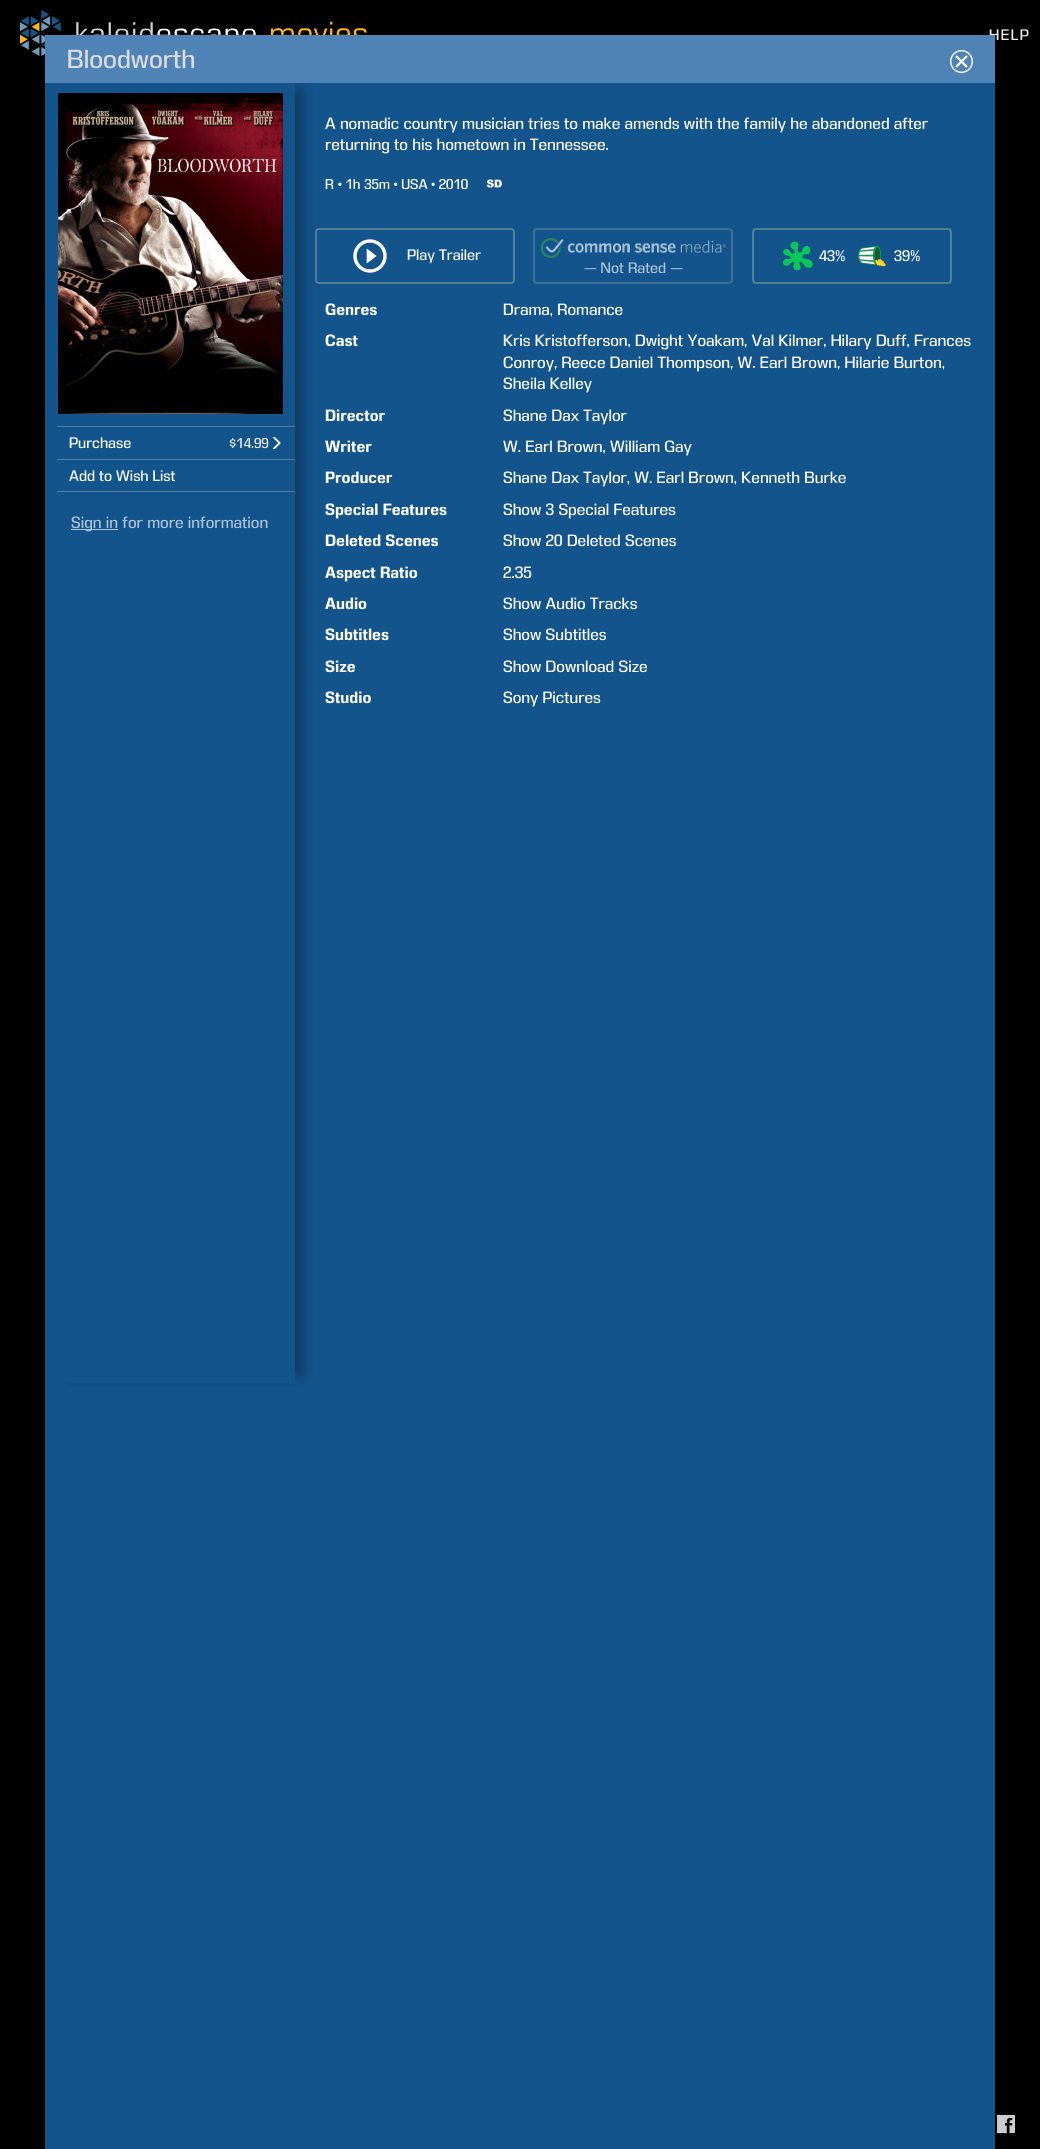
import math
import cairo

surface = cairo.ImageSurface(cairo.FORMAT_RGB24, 1040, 2149)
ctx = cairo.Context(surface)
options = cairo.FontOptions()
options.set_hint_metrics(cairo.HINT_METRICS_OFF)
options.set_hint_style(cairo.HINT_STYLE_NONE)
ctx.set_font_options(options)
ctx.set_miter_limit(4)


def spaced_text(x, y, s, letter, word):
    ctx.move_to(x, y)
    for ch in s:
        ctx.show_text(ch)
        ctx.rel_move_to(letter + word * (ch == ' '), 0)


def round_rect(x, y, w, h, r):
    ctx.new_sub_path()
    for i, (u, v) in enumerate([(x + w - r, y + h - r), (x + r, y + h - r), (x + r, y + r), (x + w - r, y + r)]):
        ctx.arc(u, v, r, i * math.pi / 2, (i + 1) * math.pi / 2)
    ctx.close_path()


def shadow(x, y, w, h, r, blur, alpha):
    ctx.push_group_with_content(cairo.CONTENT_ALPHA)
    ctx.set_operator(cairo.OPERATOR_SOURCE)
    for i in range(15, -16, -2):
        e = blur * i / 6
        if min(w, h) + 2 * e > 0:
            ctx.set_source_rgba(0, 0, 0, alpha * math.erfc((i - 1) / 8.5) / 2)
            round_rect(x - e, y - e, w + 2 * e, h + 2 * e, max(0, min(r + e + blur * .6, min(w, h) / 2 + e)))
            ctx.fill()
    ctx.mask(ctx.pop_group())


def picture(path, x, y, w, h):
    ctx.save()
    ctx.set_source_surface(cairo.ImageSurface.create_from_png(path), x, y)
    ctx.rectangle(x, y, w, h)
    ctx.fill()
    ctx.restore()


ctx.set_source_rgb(0, 0, 0)
ctx.paint()
picture("img1.png", 20, 10, 347, 46)
ctx.select_font_face("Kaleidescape")
ctx.set_font_size(14)
ctx.set_source_rgb(0.933, 0.933, 0.933)
spaced_text(989, 40, "HELP", 1.5, 0)
picture("img2.png", 997, 2115, 18, 18)
ctx.set_source_rgb(0.075, 0.329, 0.549)
ctx.rectangle(45, 83, 950, 2066)
ctx.fill()
round_rect(316, 229, 198, 54, 3)
ctx.set_source_rgb(0.337, 0.494, 0.584)
ctx.stroke()
ctx.save()
ctx.set_fill_rule(cairo.FILL_RULE_EVEN_ODD)
ctx.new_path()
ctx.move_to(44, 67)
ctx.line_to(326, 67)
ctx.line_to(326, 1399)
ctx.line_to(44, 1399)
ctx.close_path()
ctx.move_to(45, 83)
ctx.line_to(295, 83)
ctx.line_to(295, 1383)
ctx.line_to(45, 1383)
ctx.close_path()
ctx.clip()
ctx.set_source_rgb(0.051, 0.224, 0.373)
shadow(68, 91, 234, 1284, 0, 7.5, 1)
ctx.restore()
ctx.set_source_rgb(0.31, 0.514, 0.714)
ctx.rectangle(45, 35, 950, 48)
ctx.fill()
ctx.set_font_size(24)
ctx.set_source_rgb(0.863, 0.863, 0.863)
ctx.move_to(67, 68)
ctx.show_text("Bloodworth")
picture("img3.png", 950, 50, 23, 23)
picture("img4.png", 58, 93, 225, 321)
ctx.set_source_rgb(0.337, 0.494, 0.584)
ctx.rectangle(57, 426, 238, 1)
ctx.fill()
ctx.set_font_size(14)
ctx.set_source_rgb(1, 1, 1)
ctx.move_to(69, 448)
ctx.show_text("Purchase")
ctx.set_font_size(13)
ctx.set_source_rgb(0.933, 0.933, 0.933)
ctx.move_to(229, 448)
ctx.show_text("$14.99")
picture("img5.png", 272, 437, 9, 12)
ctx.set_source_rgb(0.337, 0.494, 0.584)
ctx.rectangle(57, 459, 238, 1)
ctx.fill()
ctx.rectangle(57, 491, 238, 1)
ctx.fill()
ctx.set_font_size(14)
ctx.set_source_rgb(1, 1, 1)
ctx.move_to(69, 481)
ctx.show_text("Add to Wish List")
ctx.set_source_rgb(0.69, 0.765, 0.843)
ctx.rectangle(71, 529, 47, 1)
ctx.fill()
ctx.set_font_size(15)
ctx.set_source_rgb(0.675, 0.765, 0.843)
ctx.move_to(71, 528)
ctx.show_text("Sign in for more information")
ctx.set_source_rgb(1, 1, 1)
ctx.move_to(325, 129)
ctx.show_text("A nomadic country musician tries to make amends with the family he abandoned after")
ctx.move_to(325, 150)
ctx.show_text("returning to his hometown in Tennessee.")
ctx.set_font_size(13)
ctx.move_to(325, 189)
ctx.show_text("R")
ctx.move_to(338, 189)
ctx.show_text("• 1h 35m • USA • 2010")
picture("img6.png", 486, 179, 16, 9)
picture("img7.png", 353, 239, 34, 34)
ctx.set_font_size(14)
ctx.move_to(407, 260)
ctx.show_text("Play Trailer")
round_rect(753, 229, 198, 54, 3)
ctx.set_source_rgb(0.337, 0.494, 0.584)
ctx.stroke()
picture("img8.png", 783, 241, 30, 30)
ctx.set_source_rgb(1, 1, 1)
ctx.move_to(819, 261)
ctx.show_text("43%")
picture("img9.png", 858, 245, 28, 22)
ctx.move_to(894, 261)
ctx.show_text("39%")
round_rect(534, 229, 198, 54, 3)
ctx.set_source_rgb(0.247, 0.435, 0.573)
ctx.stroke()
picture("img10.png", 540, 238, 186, 20)
ctx.set_source_rgb(0.675, 0.765, 0.843)
ctx.move_to(584, 273)
ctx.show_text("— Not Rated —")
ctx.select_font_face("Kaleidescape", cairo.FONT_SLANT_NORMAL, cairo.FONT_WEIGHT_BOLD)
ctx.set_font_size(15)
ctx.set_source_rgb(1, 1, 1)
ctx.move_to(325, 315)
ctx.show_text("Genres")
ctx.select_font_face("Kaleidescape")
ctx.move_to(503, 315)
ctx.show_text("Drama, Romance")
ctx.select_font_face("Kaleidescape", cairo.FONT_SLANT_NORMAL, cairo.FONT_WEIGHT_BOLD)
ctx.move_to(325, 346)
ctx.show_text("Cast")
ctx.select_font_face("Kaleidescape")
ctx.move_to(503, 346)
ctx.show_text("Kris Kristofferson, Dwight Yoakam, Val Kilmer, Hilary Duff, Frances")
ctx.move_to(503, 368)
ctx.show_text("Conroy, Reece Daniel Thompson, W. Earl Brown, Hilarie Burton,")
ctx.move_to(503, 389)
ctx.show_text("Sheila Kelley")
ctx.select_font_face("Kaleidescape", cairo.FONT_SLANT_NORMAL, cairo.FONT_WEIGHT_BOLD)
ctx.move_to(325, 421)
ctx.show_text("Director")
ctx.select_font_face("Kaleidescape")
ctx.move_to(503, 421)
ctx.show_text("Shane Dax Taylor")
ctx.select_font_face("Kaleidescape", cairo.FONT_SLANT_NORMAL, cairo.FONT_WEIGHT_BOLD)
ctx.move_to(325, 452)
ctx.show_text("Writer")
ctx.select_font_face("Kaleidescape")
ctx.move_to(503, 452)
ctx.show_text("W. Earl Brown, William Gay")
ctx.select_font_face("Kaleidescape", cairo.FONT_SLANT_NORMAL, cairo.FONT_WEIGHT_BOLD)
ctx.move_to(325, 483)
ctx.show_text("Producer")
ctx.select_font_face("Kaleidescape")
ctx.move_to(503, 483)
ctx.show_text("Shane Dax Taylor, W. Earl Brown, Kenneth Burke")
ctx.select_font_face("Kaleidescape", cairo.FONT_SLANT_NORMAL, cairo.FONT_WEIGHT_BOLD)
ctx.move_to(325, 515)
ctx.show_text("Special Features")
ctx.select_font_face("Kaleidescape")
ctx.move_to(503, 515)
ctx.show_text("Show 3 Special Features")
ctx.select_font_face("Kaleidescape", cairo.FONT_SLANT_NORMAL, cairo.FONT_WEIGHT_BOLD)
ctx.move_to(325, 546)
ctx.show_text("Deleted Scenes")
ctx.select_font_face("Kaleidescape")
ctx.move_to(503, 546)
ctx.show_text("Show 20 Deleted Scenes")
ctx.select_font_face("Kaleidescape", cairo.FONT_SLANT_NORMAL, cairo.FONT_WEIGHT_BOLD)
ctx.move_to(325, 578)
ctx.show_text("Aspect Ratio")
ctx.select_font_face("Kaleidescape")
ctx.move_to(503, 578)
ctx.show_text("2.35")
ctx.select_font_face("Kaleidescape", cairo.FONT_SLANT_NORMAL, cairo.FONT_WEIGHT_BOLD)
ctx.move_to(325, 609)
ctx.show_text("Audio")
ctx.select_font_face("Kaleidescape")
ctx.move_to(503, 609)
ctx.show_text("Show Audio Tracks")
ctx.select_font_face("Kaleidescape", cairo.FONT_SLANT_NORMAL, cairo.FONT_WEIGHT_BOLD)
ctx.move_to(325, 640)
ctx.show_text("Subtitles")
ctx.select_font_face("Kaleidescape")
ctx.move_to(503, 640)
ctx.show_text("Show Subtitles")
ctx.select_font_face("Kaleidescape", cairo.FONT_SLANT_NORMAL, cairo.FONT_WEIGHT_BOLD)
ctx.move_to(325, 672)
ctx.show_text("Size")
ctx.select_font_face("Kaleidescape")
ctx.move_to(503, 672)
ctx.show_text("Show Download Size")
ctx.select_font_face("Kaleidescape", cairo.FONT_SLANT_NORMAL, cairo.FONT_WEIGHT_BOLD)
ctx.move_to(325, 703)
ctx.show_text("Studio")
ctx.select_font_face("Kaleidescape")
ctx.move_to(503, 703)
ctx.show_text("Sony Pictures")
surface.write_to_png("page.png")
